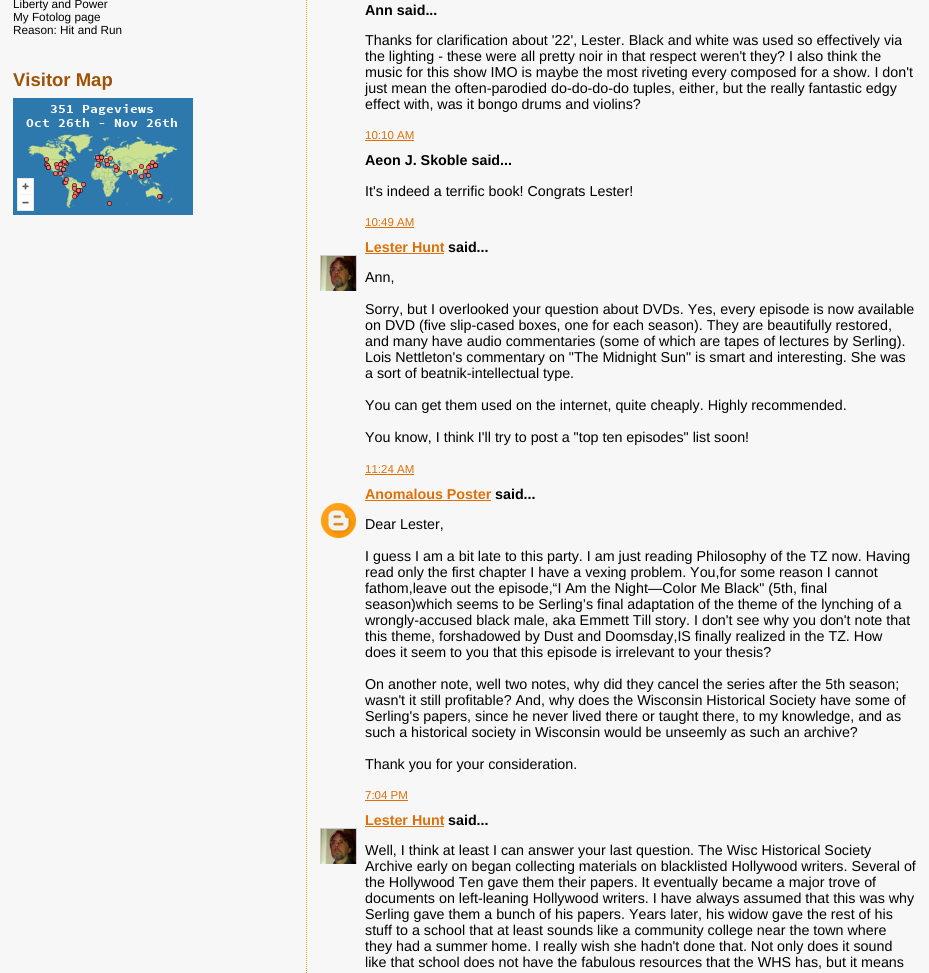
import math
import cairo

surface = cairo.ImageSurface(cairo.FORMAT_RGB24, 929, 973)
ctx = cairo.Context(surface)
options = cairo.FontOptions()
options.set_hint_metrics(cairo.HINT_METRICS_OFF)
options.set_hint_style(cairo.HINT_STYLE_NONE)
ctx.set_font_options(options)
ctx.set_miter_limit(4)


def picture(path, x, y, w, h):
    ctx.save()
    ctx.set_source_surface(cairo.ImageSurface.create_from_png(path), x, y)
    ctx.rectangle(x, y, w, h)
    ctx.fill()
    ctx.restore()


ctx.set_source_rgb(0.965, 0.965, 0.965)
ctx.paint()
ctx.select_font_face("Liberation Sans")
ctx.set_font_size(11.75)
ctx.set_source_rgb(0, 0, 0)
ctx.move_to(13, 8)
ctx.show_text("Liberty and Power")
ctx.move_to(13, 21)
ctx.show_text("My Fotolog page")
ctx.move_to(13, 34)
ctx.show_text("Reason: Hit and Run")
ctx.select_font_face("Liberation Sans", cairo.FONT_SLANT_NORMAL, cairo.FONT_WEIGHT_BOLD)
ctx.set_font_size(18.5)
ctx.set_source_rgb(0.62, 0.322, 0.02)
ctx.move_to(13, 86)
ctx.show_text("Visitor Map")
picture("img1.png", 13, 98, 180, 117)
ctx.new_path()
ctx.move_to(306.5, -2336)
ctx.line_to(306.5, 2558)
ctx.set_source_rgb(0.878, 0.678, 0.071)
ctx.set_line_width(1)
ctx.set_dash([1, 1])
ctx.stroke()
ctx.set_font_size(14.3)
ctx.set_source_rgb(0, 0, 0)
ctx.move_to(365, 15)
ctx.show_text("Ann said...")
ctx.select_font_face("Liberation Sans")
ctx.move_to(365, 45)
ctx.show_text("Thanks for clarification about '22', Lester. Black and white was used so effectively via")
ctx.move_to(365, 61)
ctx.show_text("the lighting - these were all pretty noir in that respect weren't they? I also think the")
ctx.move_to(365, 77)
ctx.show_text("music for this show IMO is maybe the most riveting every composed for a show. I don't")
ctx.move_to(365, 93)
ctx.show_text("just mean the often-parodied do-do-do-do tuples, either, but the really fantastic edgy")
ctx.move_to(365, 109)
ctx.show_text("effect with, was it bongo drums and violins?")
ctx.set_font_size(11.5)
ctx.set_source_rgb(0.871, 0.439, 0.031)
ctx.move_to(365, 139)
ctx.show_text("10:10 AM")
ctx.rectangle(365, 140, 49, 1)
ctx.fill()
ctx.select_font_face("Liberation Sans", cairo.FONT_SLANT_NORMAL, cairo.FONT_WEIGHT_BOLD)
ctx.set_font_size(14.3)
ctx.set_source_rgb(0, 0, 0)
ctx.move_to(365, 165)
ctx.show_text("Aeon J. Skoble said...")
ctx.select_font_face("Liberation Sans")
ctx.move_to(365, 196)
ctx.show_text("It's indeed a terrific book! Congrats Lester!")
ctx.set_font_size(11.5)
ctx.set_source_rgb(0.871, 0.439, 0.031)
ctx.move_to(365, 226)
ctx.show_text("10:49 AM")
ctx.rectangle(365, 227, 49, 1)
ctx.fill()
ctx.select_font_face("Liberation Sans", cairo.FONT_SLANT_NORMAL, cairo.FONT_WEIGHT_BOLD)
ctx.set_font_size(14.3)
ctx.move_to(365, 252)
ctx.show_text("Lester Hunt")
ctx.rectangle(365, 253, 79, 1)
ctx.fill()
ctx.set_source_rgb(0, 0, 0)
ctx.move_to(448, 252)
ctx.show_text("said...")
ctx.save()
ctx.rectangle(320, 255, 37, 36)
ctx.clip()
ctx.rectangle(320.5, 255.5, 36, 36)
ctx.set_source_rgb(0.8, 0.8, 0.8)
ctx.set_dash([])
ctx.stroke()
ctx.restore()
picture("img2.png", 321, 256, 35, 35)
ctx.select_font_face("Liberation Sans")
ctx.move_to(365, 282)
ctx.show_text("Ann,")
ctx.move_to(365, 314)
ctx.show_text("Sorry, but I overlooked your question about DVDs. Yes, every episode is now available")
ctx.move_to(365, 330)
ctx.show_text("on DVD (five slip-cased boxes, one for each season). They are beautifully restored,")
ctx.move_to(365, 346)
ctx.show_text("and many have audio commentaries (some of which are tapes of lectures by Serling).")
ctx.move_to(365, 362)
ctx.show_text("Lois Nettleton's commentary on \"The Midnight Sun\" is smart and interesting. She was")
ctx.move_to(365, 378)
ctx.show_text("a sort of beatnik-intellectual type.")
ctx.move_to(365, 410)
ctx.show_text("You can get them used on the internet, quite cheaply. Highly recommended.")
ctx.move_to(365, 442)
ctx.show_text("You know, I think I'll try to post a \"top ten episodes\" list soon!")
ctx.set_font_size(11.5)
ctx.set_source_rgb(0.871, 0.439, 0.031)
ctx.move_to(365, 473)
ctx.show_text("11:24 AM")
ctx.rectangle(365, 474, 49, 1)
ctx.fill()
ctx.select_font_face("Liberation Sans", cairo.FONT_SLANT_NORMAL, cairo.FONT_WEIGHT_BOLD)
ctx.set_font_size(14.3)
ctx.move_to(365, 499)
ctx.show_text("Anomalous Poster")
ctx.rectangle(365, 500, 126, 1)
ctx.fill()
ctx.set_source_rgb(0, 0, 0)
ctx.move_to(495, 499)
ctx.show_text("said...")
picture("img3.png", 321, 503, 35, 35)
ctx.select_font_face("Liberation Sans")
ctx.move_to(365, 529)
ctx.show_text("Dear Lester,")
ctx.move_to(365, 561)
ctx.show_text("I guess I am a bit late to this party. I am just reading Philosophy of the TZ now. Having")
ctx.move_to(365, 577)
ctx.show_text("read only the first chapter I have a vexing problem. You,for some reason I cannot")
ctx.move_to(365, 593)
ctx.show_text("fathom,leave out the episode,“I Am the Night—Color Me Black\" (5th, final")
ctx.move_to(365, 609)
ctx.show_text("season)which seems to be Serling’s final adaptation of the theme of the lynching of a")
ctx.move_to(365, 625)
ctx.show_text("wrongly-accused black male, aka Emmett Till story. I don't see why you don't note that")
ctx.move_to(365, 641)
ctx.show_text("this theme, forshadowed by Dust and Doomsday,IS finally realized in the TZ. How")
ctx.move_to(365, 657)
ctx.show_text("does it seem to you that this episode is irrelevant to your thesis?")
ctx.move_to(365, 689)
ctx.show_text("On another note, well two notes, why did they cancel the series after the 5th season;")
ctx.move_to(365, 705)
ctx.show_text("wasn't it still profitable? And, why does the Wisconsin Historical Society have some of")
ctx.move_to(365, 721)
ctx.show_text("Serling's papers, since he never lived there or taught there, to my knowledge, and as")
ctx.move_to(365, 737)
ctx.show_text("such a historical society in Wisconsin would be unseemly as such an archive?")
ctx.move_to(365, 769)
ctx.show_text("Thank you for your consideration.")
ctx.set_font_size(11.5)
ctx.set_source_rgb(0.871, 0.439, 0.031)
ctx.move_to(365, 799)
ctx.show_text("7:04 PM")
ctx.rectangle(365, 800, 43, 1)
ctx.fill()
ctx.select_font_face("Liberation Sans", cairo.FONT_SLANT_NORMAL, cairo.FONT_WEIGHT_BOLD)
ctx.set_font_size(14.3)
ctx.move_to(365, 825)
ctx.show_text("Lester Hunt")
ctx.rectangle(365, 826, 79, 1)
ctx.fill()
ctx.set_source_rgb(0, 0, 0)
ctx.move_to(448, 825)
ctx.show_text("said...")
ctx.save()
ctx.rectangle(320, 828, 37, 36)
ctx.clip()
ctx.rectangle(320.5, 828.5, 36, 36)
ctx.set_source_rgb(0.8, 0.8, 0.8)
ctx.set_dash([])
ctx.stroke()
ctx.restore()
picture("img2.png", 321, 829, 35, 35)
ctx.select_font_face("Liberation Sans")
ctx.move_to(365, 855)
ctx.show_text("Well, I think at least I can answer your last question. The Wisc Historical Society")
ctx.move_to(365, 871)
ctx.show_text("Archive early on began collecting materials on blacklisted Hollywood writers. Several of")
ctx.move_to(365, 887)
ctx.show_text("the Hollywood Ten gave them their papers. It eventually became a major trove of")
ctx.move_to(365, 903)
ctx.show_text("documents on left-leaning Hollywood writers. I have always assumed that this was why")
ctx.move_to(365, 919)
ctx.show_text("Serling gave them a bunch of his papers. Years later, his widow gave the rest of his")
ctx.move_to(365, 935)
ctx.show_text("stuff to a school that at least sounds like a community college near the town where")
ctx.move_to(365, 951)
ctx.show_text("they had a summer home. I really wish she hadn't done that. Not only does it sound")
ctx.move_to(365, 967)
ctx.show_text("like that school does not have the fabulous resources that the WHS has, but it means")
surface.write_to_png("page.png")
